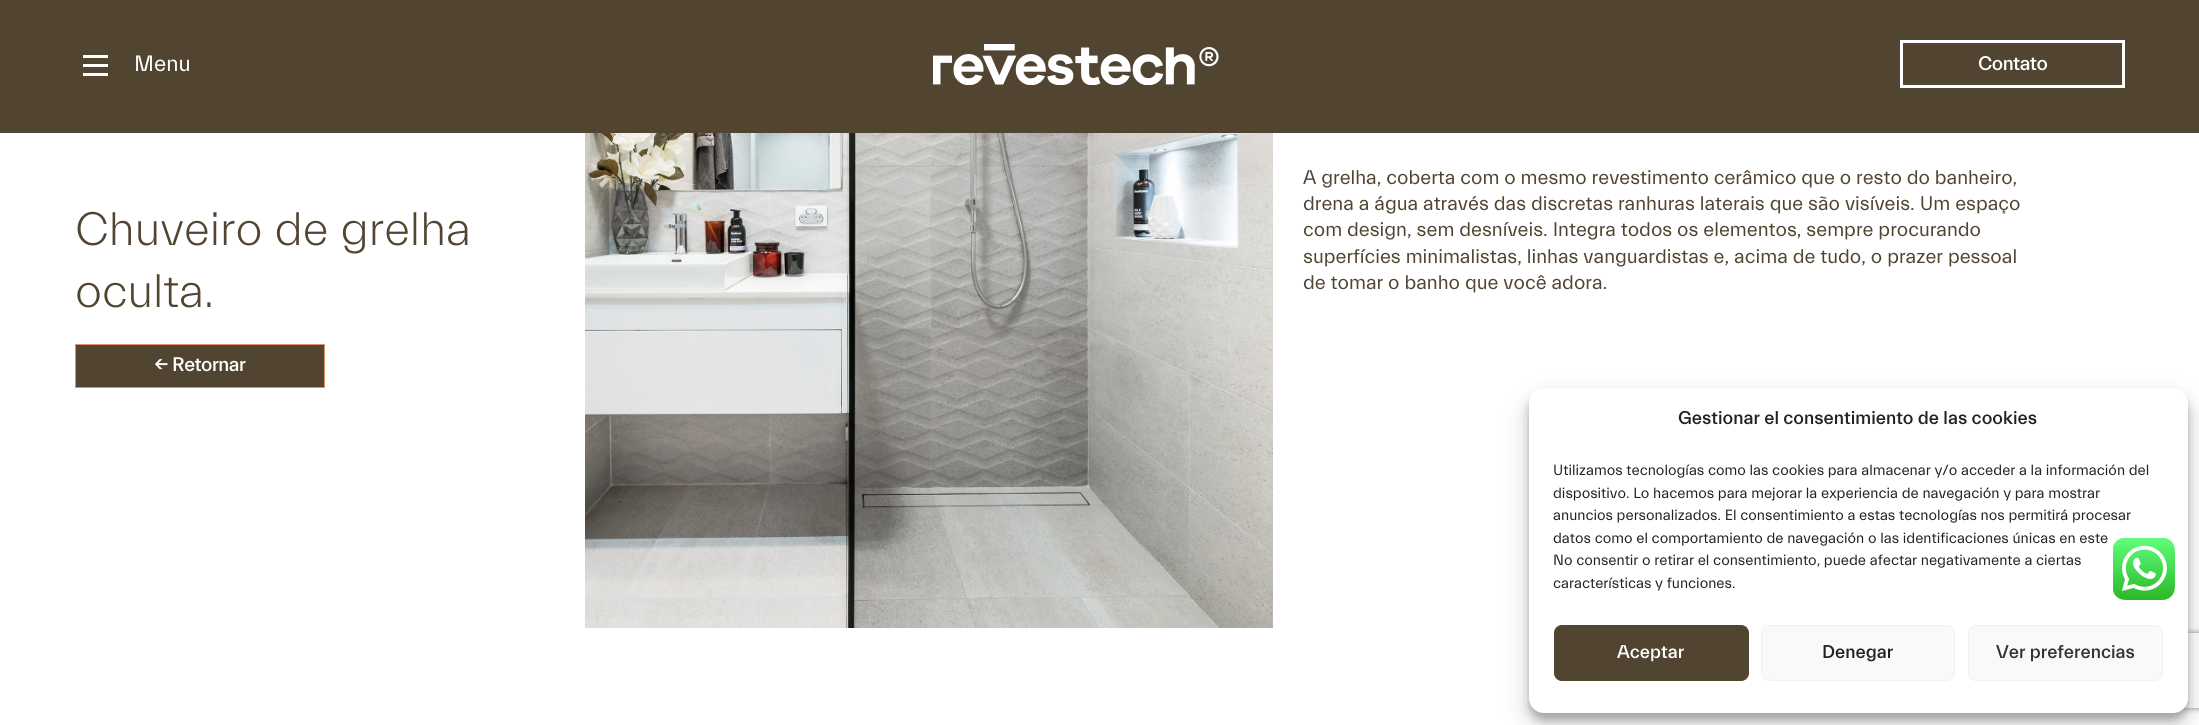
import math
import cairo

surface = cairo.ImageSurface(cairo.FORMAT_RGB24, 2199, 725)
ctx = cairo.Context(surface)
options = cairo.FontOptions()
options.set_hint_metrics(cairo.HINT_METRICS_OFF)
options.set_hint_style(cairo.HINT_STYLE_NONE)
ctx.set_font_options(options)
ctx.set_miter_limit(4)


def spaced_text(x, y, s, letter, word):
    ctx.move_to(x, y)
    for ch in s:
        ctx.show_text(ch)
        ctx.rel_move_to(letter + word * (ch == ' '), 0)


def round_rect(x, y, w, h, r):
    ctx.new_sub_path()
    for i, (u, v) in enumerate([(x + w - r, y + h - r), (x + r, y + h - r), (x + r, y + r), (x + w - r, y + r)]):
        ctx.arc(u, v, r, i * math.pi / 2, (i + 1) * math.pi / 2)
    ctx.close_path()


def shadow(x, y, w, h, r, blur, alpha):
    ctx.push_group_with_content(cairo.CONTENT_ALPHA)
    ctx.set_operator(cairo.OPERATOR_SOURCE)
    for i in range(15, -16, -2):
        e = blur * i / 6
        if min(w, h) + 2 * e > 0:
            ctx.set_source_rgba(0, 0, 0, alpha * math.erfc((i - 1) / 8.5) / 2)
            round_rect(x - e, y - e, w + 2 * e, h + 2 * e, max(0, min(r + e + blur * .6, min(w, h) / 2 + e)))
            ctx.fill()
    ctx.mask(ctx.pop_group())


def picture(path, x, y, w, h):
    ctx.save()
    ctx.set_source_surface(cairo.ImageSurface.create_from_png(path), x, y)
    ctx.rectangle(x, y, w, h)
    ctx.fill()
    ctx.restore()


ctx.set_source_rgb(1, 1, 1)
ctx.paint()
ctx.set_source_rgb(0.318, 0.267, 0.192)
ctx.rectangle(0, 0, 2199, 133)
ctx.fill()
ctx.set_source_rgb(1, 1, 1)
ctx.rectangle(83, 55, 25, 3)
ctx.fill()
ctx.rectangle(83, 64, 25, 3)
ctx.fill()
ctx.rectangle(83, 73, 25, 3)
ctx.fill()
ctx.select_font_face("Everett")
ctx.set_font_size(22.5)
ctx.move_to(134, 71)
ctx.show_text("Menu")
picture("img1.png", 933, 44, 286, 41)
ctx.rectangle(1901.5, 41.5, 222, 45)
ctx.set_line_width(3)
ctx.stroke()
ctx.select_font_face("Everett Medium")
ctx.set_font_size(20)
spaced_text(1978, 70, "Contato", -0.5, 0)
ctx.select_font_face("Everett Light")
ctx.set_font_size(47.5)
ctx.set_source_rgb(0.318, 0.267, 0.192)
ctx.move_to(75, 245)
ctx.show_text("Chuveiro de grelha")
ctx.move_to(75, 307)
ctx.show_text("oculta.")
ctx.rectangle(75.5, 344.5, 249, 43)
ctx.fill_preserve()
ctx.set_source_rgb(0.886, 0.573, 0.376)
ctx.set_line_width(1)
ctx.stroke()
ctx.select_font_face("Everett Medium")
ctx.set_font_size(20)
ctx.set_source_rgb(1, 1, 1)
spaced_text(154, 371, "← Retornar", -0.5, 0)
picture("img2.png", 585, 133, 688, 495)
ctx.select_font_face("Everett")
ctx.set_source_rgb(0.318, 0.267, 0.192)
ctx.move_to(1303, 184)
ctx.show_text("A grelha, coberta com o mesmo revestimento cerâmico que o resto do banheiro,")
ctx.move_to(1303, 210)
ctx.show_text("drena a água através das discretas ranhuras laterais que são visíveis. Um espaço")
ctx.move_to(1303, 236)
ctx.show_text("com design, sem desníveis. Integra todos os elementos, sempre procurando")
ctx.move_to(1303, 263)
ctx.show_text("superfícies minimalistas, linhas vanguardistas e, acima de tudo, o prazer pessoal")
ctx.move_to(1303, 289)
ctx.show_text("de tomar o banho que você adora.")
ctx.set_source_rgb(0, 0, 0)
shadow(1529, 395, 659, 325, 15, 4, 0.23)
shadow(1529, 400, 659, 325, 15, 12.5, 0.19)
ctx.save()
ctx.set_fill_rule(cairo.FILL_RULE_EVEN_ODD)
ctx.new_path()
ctx.move_to(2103, 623)
ctx.line_to(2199, 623)
ctx.line_to(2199, 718)
ctx.line_to(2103, 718)
ctx.close_path()
ctx.move_to(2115.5, 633)
ctx.line_to(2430.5, 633)
ctx.curve_to(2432, 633, 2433, 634, 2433, 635.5)
ctx.line_to(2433, 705.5)
ctx.curve_to(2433, 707, 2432, 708, 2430.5, 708)
ctx.line_to(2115.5, 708)
ctx.curve_to(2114, 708, 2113, 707, 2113, 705.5)
ctx.line_to(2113, 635.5)
ctx.curve_to(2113, 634, 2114, 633, 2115.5, 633)
ctx.close_path()
ctx.clip()
ctx.set_source_rgb(0.502, 0.502, 0.502)
shadow(2113, 633, 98, 75, 2.5, 3, 1)
ctx.restore()
ctx.set_source_rgb(1, 1, 1)
round_rect(1529, 388, 659, 325, 15)
ctx.fill()
ctx.select_font_face("Everett Medium")
ctx.set_font_size(18.75)
ctx.set_source_rgb(0.133, 0.133, 0.133)
ctx.move_to(1678, 424)
ctx.show_text("Gestionar el consentimiento de las cookies")
ctx.select_font_face("Everett")
ctx.set_font_size(15)
ctx.move_to(1553, 475)
ctx.show_text("Utilizamos tecnologías como las cookies para almacenar y/o acceder a la información del")
ctx.move_to(1553, 498)
ctx.show_text("dispositivo. Lo hacemos para mejorar la experiencia de navegación y para mostrar")
ctx.move_to(1553, 520)
ctx.show_text("anuncios personalizados. El consentimiento a estas tecnologías nos permitirá procesar")
ctx.move_to(1553, 543)
ctx.show_text("datos como el comportamiento de navegación o las identificaciones únicas en este")
ctx.move_to(1553, 565)
ctx.show_text("No consentir o retirar el consentimiento, puede afectar negativamente a ciertas")
ctx.move_to(1553, 588)
ctx.show_text("características y funciones.")
ctx.set_source_rgb(0.318, 0.267, 0.192)
round_rect(1554.5, 625.5, 194, 55, 7.5)
ctx.fill_preserve()
ctx.stroke()
ctx.select_font_face("Everett Medium")
ctx.set_font_size(18.75)
ctx.set_source_rgb(1, 1, 1)
ctx.move_to(1617, 658)
ctx.show_text("Aceptar")
ctx.set_source_rgb(0.976, 0.976, 0.976)
round_rect(1761.5, 625.5, 193, 55, 7.5)
ctx.fill_preserve()
ctx.set_source_rgb(0.949, 0.949, 0.949)
ctx.stroke()
ctx.set_source_rgb(0.133, 0.133, 0.133)
ctx.move_to(1822, 658)
ctx.show_text("Denegar")
ctx.set_source_rgb(0.976, 0.976, 0.976)
round_rect(1968.5, 625.5, 194, 55, 7.5)
ctx.fill_preserve()
ctx.set_source_rgb(0.949, 0.949, 0.949)
ctx.stroke()
ctx.set_source_rgb(0.2, 0.2, 0.2)
ctx.move_to(1996, 658)
ctx.show_text("Ver preferencias")
picture("img3.png", 2113, 538, 62, 62)
surface.write_to_png("page.png")
